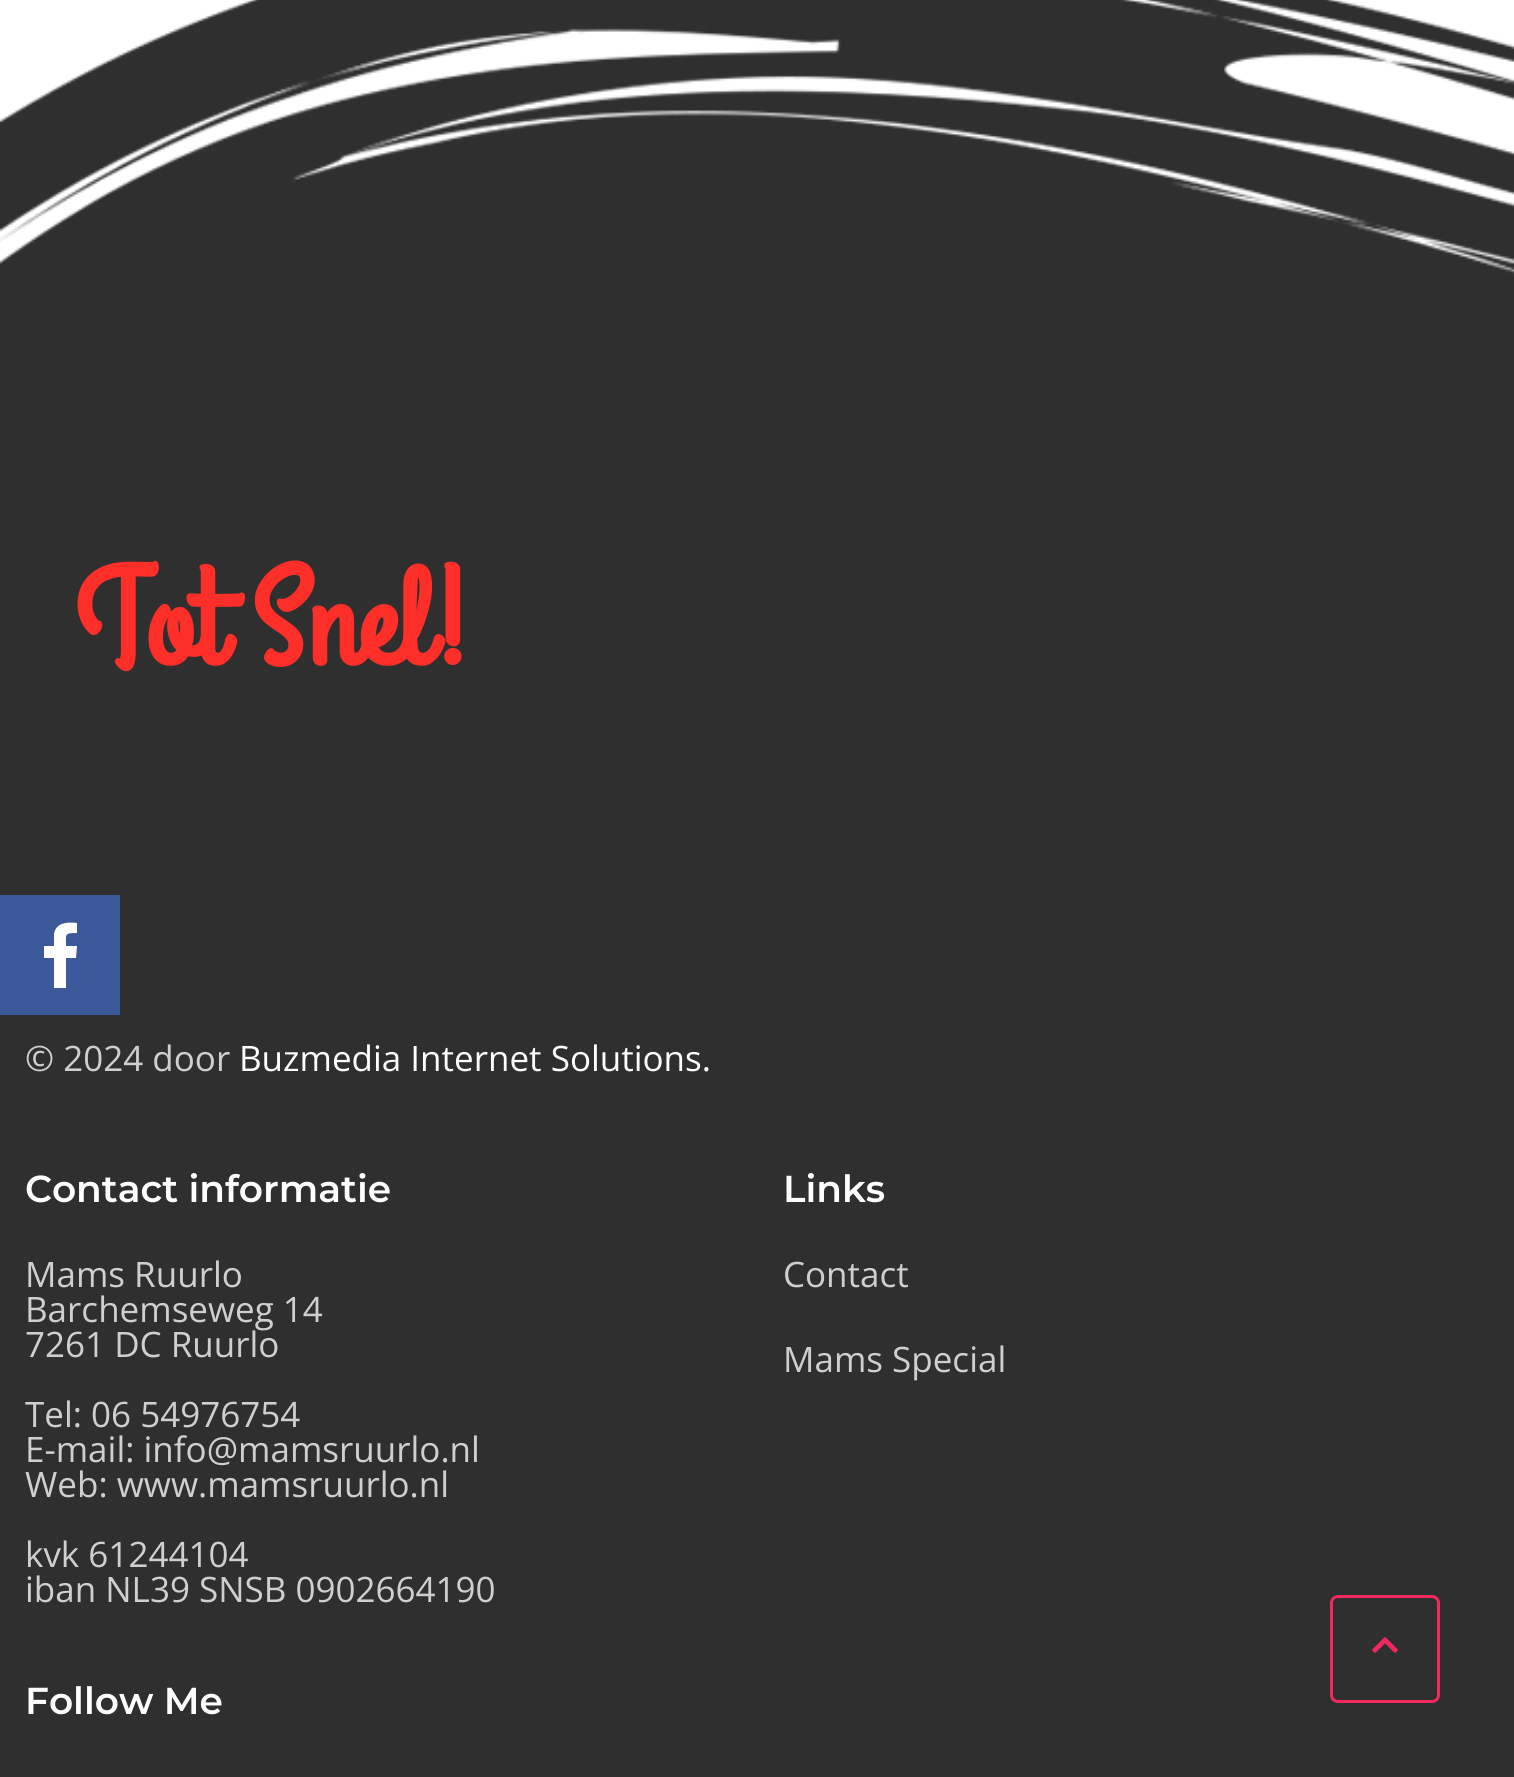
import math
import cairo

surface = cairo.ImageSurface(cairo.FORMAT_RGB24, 1514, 1777)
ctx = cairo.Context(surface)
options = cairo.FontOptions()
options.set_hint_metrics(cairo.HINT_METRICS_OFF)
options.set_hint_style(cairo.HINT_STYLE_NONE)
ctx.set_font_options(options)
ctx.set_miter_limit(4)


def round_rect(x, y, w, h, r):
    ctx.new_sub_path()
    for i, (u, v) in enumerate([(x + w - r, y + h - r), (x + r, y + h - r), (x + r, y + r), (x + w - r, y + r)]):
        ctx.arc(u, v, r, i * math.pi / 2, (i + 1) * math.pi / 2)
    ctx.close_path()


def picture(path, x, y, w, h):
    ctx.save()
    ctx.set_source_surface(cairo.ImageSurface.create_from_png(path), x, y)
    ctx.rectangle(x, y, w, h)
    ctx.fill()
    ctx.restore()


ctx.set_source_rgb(1, 1, 1)
ctx.paint()
picture("img1.png", 0, 0, 1514, 825)
ctx.select_font_face("Grand Hotel", cairo.FONT_SLANT_NORMAL, cairo.FONT_WEIGHT_BOLD)
ctx.set_font_size(137.5)
ctx.set_source_rgb(0.996, 0.18, 0.161)
ctx.move_to(75, 662)
ctx.show_text("Tot Snel!")
ctx.set_source_rgb(0.184, 0.184, 0.184)
ctx.rectangle(0, 825, 1514, 952)
ctx.fill()
ctx.select_font_face("Open Sans")
ctx.set_font_size(35)
ctx.set_source_rgb(0.812, 0.812, 0.812)
ctx.move_to(25, 1071)
ctx.show_text("© 2024 door")
ctx.set_source_rgb(1, 1, 1)
ctx.move_to(239, 1071)
ctx.show_text("Buzmedia Internet Solutions.")
ctx.select_font_face("Montserrat SemiBold")
ctx.set_font_size(37.5)
ctx.move_to(25, 1202)
ctx.show_text("Contact informatie")
ctx.select_font_face("Open Sans")
ctx.set_font_size(35)
ctx.set_source_rgb(0.812, 0.812, 0.812)
ctx.move_to(25, 1287)
ctx.show_text("Mams Ruurlo")
ctx.move_to(25, 1322)
ctx.show_text("Barchemseweg 14")
ctx.move_to(25, 1357)
ctx.show_text("7261 DC Ruurlo")
ctx.move_to(25, 1427)
ctx.show_text("Tel: 06 54976754")
ctx.move_to(25, 1462)
ctx.show_text("E-mail: info@mamsruurlo.nl")
ctx.move_to(25, 1497)
ctx.show_text("Web: www.mamsruurlo.nl")
ctx.move_to(25, 1567)
ctx.show_text("kvk 61244104")
ctx.move_to(25, 1602)
ctx.show_text("iban NL39 SNSB 0902664190")
ctx.select_font_face("Montserrat SemiBold")
ctx.set_font_size(37.5)
ctx.set_source_rgb(1, 1, 1)
ctx.move_to(783, 1202)
ctx.show_text("Links")
ctx.select_font_face("Open Sans")
ctx.set_font_size(35)
ctx.set_source_rgb(0.812, 0.812, 0.812)
ctx.move_to(783, 1287)
ctx.show_text("Contact")
ctx.move_to(783, 1372)
ctx.show_text("Mams Special")
ctx.select_font_face("Montserrat SemiBold")
ctx.set_font_size(37.5)
ctx.set_source_rgb(1, 1, 1)
ctx.move_to(25, 1714)
ctx.show_text("Follow Me")
round_rect(1331.5, 1596.5, 107, 105, 6.5)
ctx.set_source_rgb(0.953, 0.157, 0.373)
ctx.set_line_width(3)
ctx.stroke()
picture("img2.png", 1372, 1637, 26, 16)
ctx.set_source_rgb(0.231, 0.349, 0.596)
ctx.rectangle(0, 895, 120, 120)
ctx.fill()
ctx.set_source_rgb(1, 1, 1)
ctx.new_path()
ctx.move_to(77, 923)
ctx.line_to(77, 933)
ctx.curve_to(64, 933, 66, 934, 66, 946)
ctx.line_to(77, 946)
ctx.line_to(76, 958)
ctx.line_to(66, 958)
ctx.line_to(66, 988)
ctx.line_to(54, 988)
ctx.line_to(54, 958)
ctx.line_to(44, 958)
ctx.line_to(44, 946)
ctx.line_to(54, 946)
ctx.line_to(54, 934)
ctx.curve_to(56, 922, 68, 922, 77, 923)
ctx.close_path()
ctx.fill()
surface.write_to_png("page.png")
